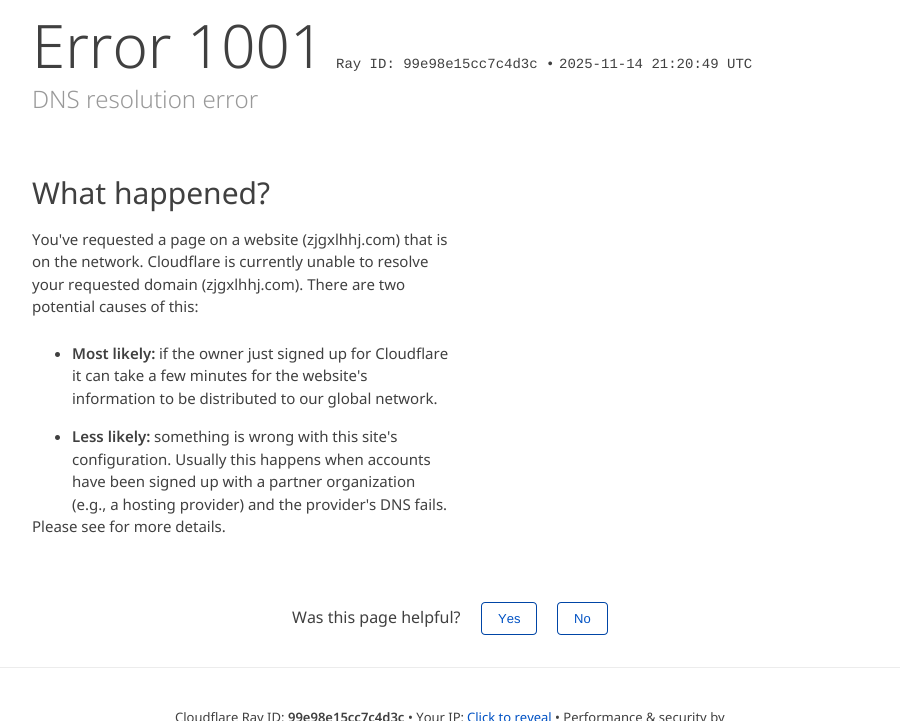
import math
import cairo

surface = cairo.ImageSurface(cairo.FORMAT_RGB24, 900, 721)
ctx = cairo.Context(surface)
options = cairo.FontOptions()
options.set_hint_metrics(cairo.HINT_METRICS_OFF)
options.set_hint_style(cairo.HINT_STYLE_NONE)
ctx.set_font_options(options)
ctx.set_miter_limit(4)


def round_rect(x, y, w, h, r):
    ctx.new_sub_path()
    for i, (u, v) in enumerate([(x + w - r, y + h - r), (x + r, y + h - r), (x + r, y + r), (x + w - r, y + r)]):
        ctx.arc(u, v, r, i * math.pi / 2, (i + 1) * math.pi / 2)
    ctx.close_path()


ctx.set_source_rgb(1, 1, 1)
ctx.paint()
ctx.select_font_face("Noto Sans Light")
ctx.set_font_size(60)
ctx.set_source_rgb(0.251, 0.251, 0.251)
ctx.move_to(32, 68)
ctx.show_text("Error 1001")
ctx.select_font_face("Liberation Mono")
ctx.set_font_size(14)
ctx.move_to(336, 68)
ctx.show_text("Ray ID: 99e98e15cc7c4d3c •")
ctx.move_to(559, 68)
ctx.show_text("2025-11-14 21:20:49 UTC")
ctx.select_font_face("Noto Sans Light")
ctx.set_font_size(24)
ctx.set_source_rgb(0.6, 0.6, 0.6)
ctx.move_to(32, 108)
ctx.show_text("DNS resolution error")
ctx.select_font_face("Noto Sans")
ctx.set_font_size(30)
ctx.set_source_rgb(0.251, 0.251, 0.251)
ctx.move_to(32, 204)
ctx.show_text("What happened?")
ctx.set_font_size(15)
ctx.move_to(32, 245)
ctx.show_text("You've requested a page on a website (zjgxlhhj.com) that is")
ctx.move_to(32, 267)
ctx.show_text("on the network. Cloudflare is currently unable to resolve")
ctx.move_to(32, 290)
ctx.show_text("your requested domain (zjgxlhhj.com). There are two")
ctx.move_to(32, 312)
ctx.show_text("potential causes of this:")
ctx.new_path()
ctx.arc(57.5, 354.5, 2.5, 0, 2 * math.pi)
ctx.fill()
ctx.select_font_face("Noto Sans SemiBold")
ctx.move_to(72, 359)
ctx.show_text("Most likely:")
ctx.select_font_face("Noto Sans")
ctx.move_to(159, 359)
ctx.show_text("if the owner just signed up for Cloudflare")
ctx.move_to(72, 381)
ctx.show_text("it can take a few minutes for the website's")
ctx.move_to(72, 404)
ctx.show_text("information to be distributed to our global network.")
ctx.new_path()
ctx.arc(57.5, 437.5, 2.5, 0, 2 * math.pi)
ctx.fill()
ctx.select_font_face("Noto Sans SemiBold")
ctx.move_to(72, 442)
ctx.show_text("Less likely:")
ctx.select_font_face("Noto Sans")
ctx.move_to(154, 442)
ctx.show_text("something is wrong with this site's")
ctx.move_to(72, 465)
ctx.show_text("configuration. Usually this happens when accounts")
ctx.move_to(72, 487)
ctx.show_text("have been signed up with a partner organization")
ctx.move_to(72, 510)
ctx.show_text("(e.g., a hosting provider) and the provider's DNS fails.")
ctx.move_to(32, 532)
ctx.show_text("Please see for more details.")
ctx.set_font_size(16)
ctx.move_to(292, 623)
ctx.show_text("Was this page helpful?")
round_rect(481.5, 602.5, 55, 32, 3.5)
ctx.set_source_rgb(0, 0.271, 0.651)
ctx.set_line_width(1)
ctx.stroke()
ctx.select_font_face("Liberation Sans")
ctx.set_font_size(13)
ctx.set_source_rgb(0, 0.318, 0.765)
ctx.move_to(498, 623)
ctx.show_text("Yes")
round_rect(557.5, 602.5, 50, 32, 3.5)
ctx.set_source_rgb(0, 0.271, 0.651)
ctx.stroke()
ctx.set_source_rgb(0, 0.318, 0.765)
ctx.move_to(574, 623)
ctx.show_text("No")
ctx.set_source_rgb(0.922, 0.922, 0.922)
ctx.rectangle(0, 667, 900, 1)
ctx.fill()
ctx.select_font_face("Noto Sans")
ctx.set_source_rgb(0.251, 0.251, 0.251)
ctx.move_to(175, 722)
ctx.show_text("Cloudflare Ray ID:")
ctx.select_font_face("Noto Sans SemiBold")
ctx.move_to(288, 722)
ctx.show_text("99e98e15cc7c4d3c")
ctx.select_font_face("Noto Sans")
ctx.move_to(408, 722)
ctx.show_text("• Your IP:")
ctx.set_source_rgb(0, 0.318, 0.765)
ctx.move_to(467, 722)
ctx.show_text("Click to reveal")
ctx.set_source_rgb(0.251, 0.251, 0.251)
ctx.move_to(555, 722)
ctx.show_text("• Performance & security by")
surface.write_to_png("page.png")
